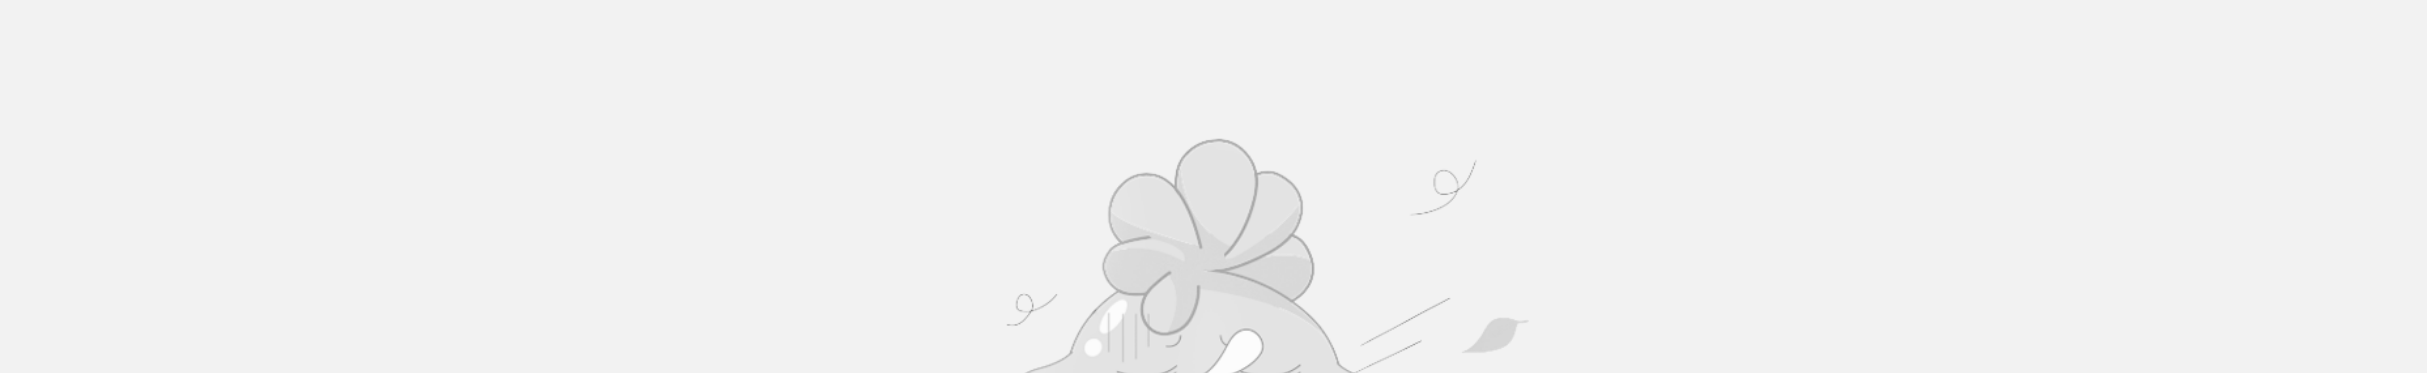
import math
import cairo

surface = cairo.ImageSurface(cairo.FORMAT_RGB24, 2427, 373)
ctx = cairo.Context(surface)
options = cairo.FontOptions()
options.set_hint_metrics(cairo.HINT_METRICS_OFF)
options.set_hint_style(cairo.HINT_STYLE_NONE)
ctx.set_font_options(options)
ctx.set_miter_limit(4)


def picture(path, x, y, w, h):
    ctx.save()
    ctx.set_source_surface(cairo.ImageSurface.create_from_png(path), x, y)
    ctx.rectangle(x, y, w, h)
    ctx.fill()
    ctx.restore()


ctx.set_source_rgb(0.949, 0.949, 0.949)
ctx.paint()
picture("img1.png", 1006, 138, 523, 235)
surface.write_to_png("page.png")
